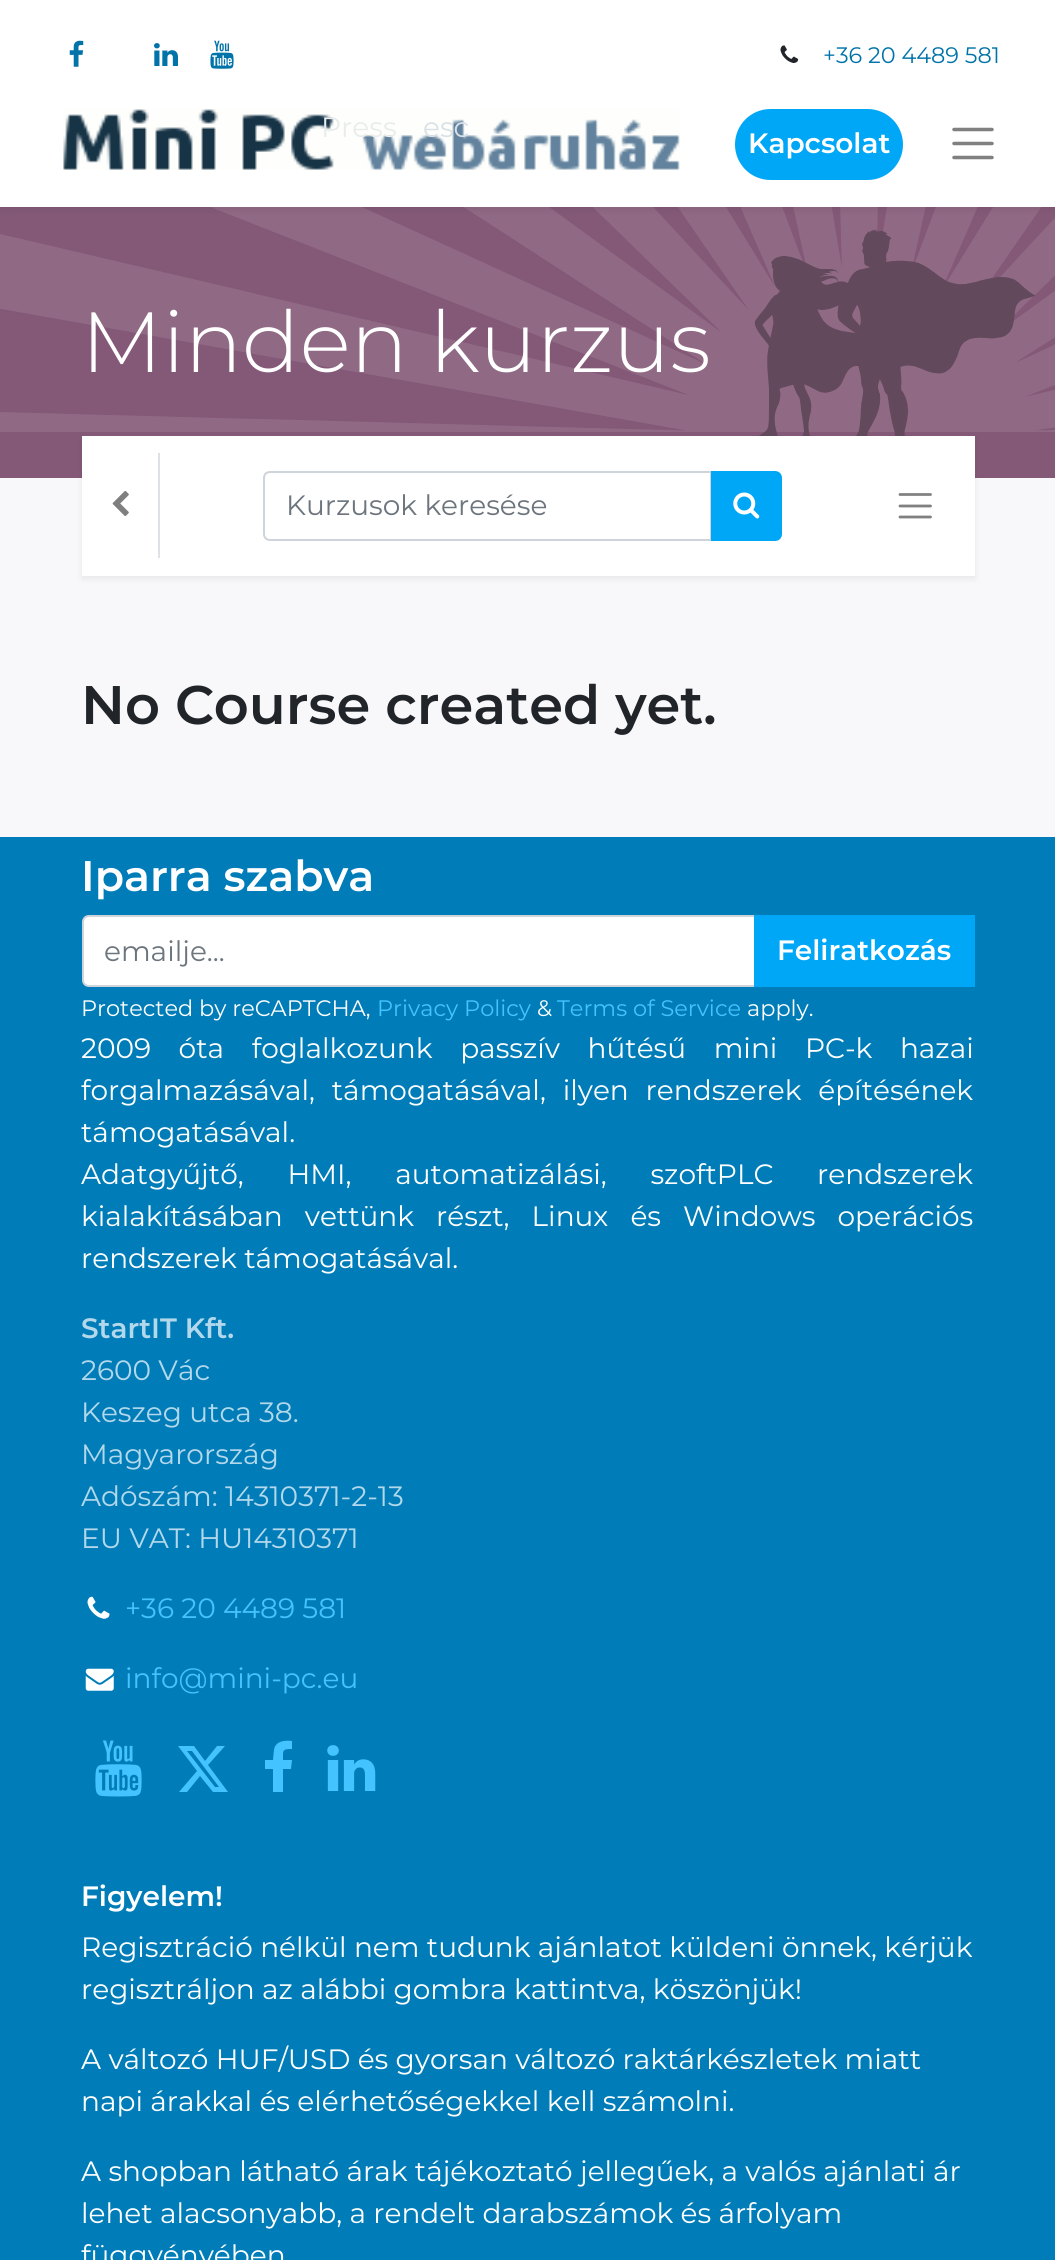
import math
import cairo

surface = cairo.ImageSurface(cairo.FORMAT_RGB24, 1055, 2260)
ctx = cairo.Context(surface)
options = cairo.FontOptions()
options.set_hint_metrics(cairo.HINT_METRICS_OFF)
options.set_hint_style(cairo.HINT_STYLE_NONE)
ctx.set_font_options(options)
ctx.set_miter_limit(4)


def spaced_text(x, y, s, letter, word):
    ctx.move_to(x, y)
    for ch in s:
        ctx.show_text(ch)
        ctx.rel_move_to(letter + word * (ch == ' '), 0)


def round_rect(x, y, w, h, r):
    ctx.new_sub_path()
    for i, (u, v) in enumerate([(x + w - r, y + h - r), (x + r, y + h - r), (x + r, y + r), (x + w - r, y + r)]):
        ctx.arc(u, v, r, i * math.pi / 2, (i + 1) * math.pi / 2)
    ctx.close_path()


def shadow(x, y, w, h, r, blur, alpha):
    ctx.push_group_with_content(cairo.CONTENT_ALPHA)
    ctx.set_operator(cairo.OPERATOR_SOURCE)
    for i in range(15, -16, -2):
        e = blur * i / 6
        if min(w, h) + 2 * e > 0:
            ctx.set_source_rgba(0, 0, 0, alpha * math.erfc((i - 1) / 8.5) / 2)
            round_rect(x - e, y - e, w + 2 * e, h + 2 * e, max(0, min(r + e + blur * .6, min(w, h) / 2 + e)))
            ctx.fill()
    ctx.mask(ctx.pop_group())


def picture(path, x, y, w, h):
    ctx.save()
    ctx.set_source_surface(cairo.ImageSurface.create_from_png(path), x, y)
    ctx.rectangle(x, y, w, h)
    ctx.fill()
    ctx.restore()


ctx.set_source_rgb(0.969, 0.969, 0.98)
ctx.paint()
picture("img6.png", 0, 207, 1055, 271)
ctx.set_source_rgb(0, 0, 0)
shadow(0, 4, 1055, 206, 0, 3.5, 0.07)
ctx.set_source_rgb(1, 1, 1)
ctx.rectangle(0, 0, 1055, 207)
ctx.fill()
picture("img1.png", 69, 40, 15, 27)
picture("img2.png", 154, 43, 24, 23)
picture("img3.png", 210, 40, 24, 29)
picture("img4.png", 780, 45, 19, 18)
ctx.select_font_face("Montserrat")
ctx.set_font_size(22.4)
ctx.set_source_rgb(0, 0.451, 0.663)
ctx.move_to(823, 63)
ctx.show_text("+36 20 4489 581")
picture("img5.png", 63, 109, 617, 61)
ctx.set_source_rgb(0, 0.655, 0.961)
round_rect(736, 110, 166, 69, 34.5)
ctx.fill_preserve()
ctx.stroke()
ctx.select_font_face("Montserrat SemiBold")
ctx.set_font_size(28)
ctx.set_source_rgb(1, 1, 1)
ctx.move_to(748, 153)
ctx.show_text("Kapcsolat")
ctx.new_path()
ctx.move_to(954, 129.5)
ctx.line_to(992, 129.5)
ctx.move_to(954, 143.5)
ctx.line_to(992, 143.5)
ctx.move_to(954, 157.5)
ctx.line_to(992, 157.5)
ctx.set_source_rgb(0.502, 0.502, 0.502)
ctx.set_line_width(3.5)
ctx.set_line_cap(cairo.LINE_CAP_ROUND)
ctx.stroke()
ctx.select_font_face("Montserrat Light")
ctx.set_font_size(85.25)
ctx.set_source_rgb(1, 1, 1)
ctx.move_to(81, 372)
ctx.show_text("Minden kurzus")
ctx.set_source_rgb(0, 0, 0)
shadow(82, 439, 893, 140, 0, 3.5, 0.07)
ctx.set_source_rgb(1, 1, 1)
ctx.rectangle(82, 436, 893, 140)
ctx.fill()
ctx.set_source_rgb(0.871, 0.886, 0.902)
ctx.rectangle(158, 453, 2, 105)
ctx.fill()
picture("img7.png", 112, 491, 17, 25)
ctx.new_path()
ctx.move_to(270, 472)
ctx.line_to(711, 472)
ctx.line_to(711, 540)
ctx.line_to(270, 540)
ctx.curve_to(266.5, 540, 264, 537.5, 264, 534)
ctx.line_to(264, 478)
ctx.curve_to(264, 474.5, 266.5, 472, 270, 472)
ctx.close_path()
ctx.set_source_rgb(0.808, 0.831, 0.855)
ctx.set_line_width(2)
ctx.set_line_cap(cairo.LINE_CAP_BUTT)
ctx.stroke()
ctx.select_font_face("Montserrat")
ctx.set_font_size(28)
ctx.set_source_rgb(0.424, 0.459, 0.49)
ctx.move_to(286, 515)
ctx.show_text("Kurzusok keresése")
ctx.set_source_rgb(0, 0.655, 0.961)
ctx.new_path()
ctx.move_to(712, 472)
ctx.line_to(775, 472)
ctx.curve_to(778.5, 472, 781, 474.5, 781, 478)
ctx.line_to(781, 534)
ctx.curve_to(781, 537.5, 778.5, 540, 775, 540)
ctx.line_to(712, 540)
ctx.close_path()
ctx.fill_preserve()
ctx.stroke()
picture("img8.png", 733, 492, 27, 27)
ctx.new_path()
ctx.move_to(900, 494.5)
ctx.line_to(930.5, 494.5)
ctx.move_to(900, 506)
ctx.line_to(930.5, 506)
ctx.move_to(900, 517)
ctx.line_to(930.5, 517)
ctx.set_source_rgb(0.502, 0.502, 0.502)
ctx.set_line_width(2.8)
ctx.set_line_cap(cairo.LINE_CAP_ROUND)
ctx.stroke()
ctx.select_font_face("Montserrat SemiBold")
ctx.set_font_size(54.25)
ctx.set_source_rgb(0.129, 0.145, 0.161)
ctx.move_to(81, 724)
ctx.show_text("No Course created yet.")
ctx.set_source_rgb(0, 0.49, 0.722)
ctx.rectangle(0, 837, 1055, 1423)
ctx.fill()
ctx.set_font_size(42.75)
ctx.set_source_rgb(1, 1, 1)
ctx.move_to(81, 891)
ctx.show_text("Iparra szabva")
ctx.new_path()
ctx.move_to(89, 916)
ctx.line_to(755, 916)
ctx.line_to(755, 986)
ctx.line_to(89, 986)
ctx.curve_to(85.5, 986, 83, 983.5, 83, 980)
ctx.line_to(83, 922)
ctx.curve_to(83, 918.5, 85.5, 916, 89, 916)
ctx.close_path()
ctx.fill_preserve()
ctx.set_source_rgb(0.808, 0.831, 0.855)
ctx.set_line_width(2)
ctx.set_line_cap(cairo.LINE_CAP_BUTT)
ctx.stroke()
ctx.select_font_face("Montserrat")
ctx.set_font_size(28)
ctx.set_source_rgb(0.424, 0.459, 0.49)
ctx.move_to(104, 961)
ctx.show_text("emailje...")
ctx.set_source_rgb(0, 0.655, 0.961)
ctx.rectangle(754, 915, 221, 72)
ctx.fill()
ctx.select_font_face("Montserrat SemiBold")
ctx.set_source_rgb(1, 1, 1)
ctx.move_to(777, 960)
ctx.show_text("Feliratkozás")
ctx.select_font_face("Montserrat")
ctx.set_font_size(22.4)
ctx.move_to(81, 1016)
ctx.show_text("Protected by reCAPTCHA,")
ctx.set_source_rgb(0.263, 0.765, 1)
ctx.move_to(377, 1016)
ctx.show_text("Privacy Policy")
ctx.set_source_rgb(1, 1, 1)
ctx.move_to(537, 1016)
ctx.show_text("&")
ctx.set_source_rgb(0.263, 0.765, 1)
ctx.move_to(557, 1016)
ctx.show_text("Terms of Service")
ctx.set_source_rgb(1, 1, 1)
ctx.move_to(747, 1016)
ctx.show_text("apply.")
ctx.set_font_size(28)
spaced_text(81, 1058, "2009 óta foglalkozunk passzív hűtésű mini PC-k hazai", 0, 20.25)
spaced_text(81, 1100, "forgalmazásával, támogatásával, ilyen rendszerek építésének", 0, 9.5)
ctx.move_to(81, 1142)
ctx.show_text("támogatásával.")
spaced_text(81, 1184, "Adatgyűjtő, HMI, automatizálási, szoftPLC rendszerek", 0, 36.5)
spaced_text(81, 1226, "kialakításában vettünk részt, Linux és Windows operációs", 0, 14.75)
ctx.move_to(81, 1268)
ctx.show_text("rendszerek támogatásával.")
ctx.select_font_face("Montserrat SemiBold")
ctx.set_source_rgb(0.702, 0.847, 0.918)
ctx.move_to(81, 1338)
ctx.show_text("StartIT Kft.")
ctx.select_font_face("Montserrat")
ctx.move_to(81, 1380)
ctx.show_text("2600 Vác")
ctx.move_to(81, 1422)
ctx.show_text("Keszeg utca 38.")
ctx.move_to(81, 1464)
ctx.show_text("Magyarország")
ctx.move_to(81, 1506)
ctx.show_text("Adószám: 14310371-2-13")
ctx.move_to(81, 1548)
ctx.show_text("EU VAT: HU14310371")
picture("img9.png", 87, 1596, 23, 23)
ctx.set_source_rgb(0.263, 0.765, 1)
ctx.move_to(125, 1618)
ctx.show_text("+36 20 4489 581")
picture("img10.png", 85, 1668, 29, 23)
ctx.move_to(125, 1688)
ctx.show_text("info@mini-pc.eu")
picture("img11.png", 95, 1740, 47, 57)
ctx.new_path()
ctx.move_to(217, 1746)
ctx.line_to(225, 1746)
ctx.line_to(208, 1765)
ctx.line_to(228, 1792)
ctx.line_to(213, 1792)
ctx.line_to(200, 1776)
ctx.line_to(187, 1792)
ctx.line_to(179, 1792)
ctx.line_to(197, 1771)
ctx.line_to(178, 1746)
ctx.line_to(194, 1746)
ctx.line_to(205, 1761)
ctx.close_path()
ctx.move_to(215, 1787)
ctx.line_to(219, 1787)
ctx.line_to(192, 1751)
ctx.line_to(187, 1751)
ctx.close_path()
ctx.fill()
ctx.new_path()
ctx.move_to(292, 1741)
ctx.line_to(292, 1749)
ctx.curve_to(282, 1749, 283, 1750, 283, 1760)
ctx.line_to(292, 1760)
ctx.line_to(291, 1769)
ctx.line_to(283, 1769)
ctx.line_to(283, 1792)
ctx.line_to(273, 1792)
ctx.line_to(273, 1769)
ctx.line_to(265, 1769)
ctx.line_to(265, 1760)
ctx.line_to(273, 1760)
ctx.line_to(274, 1750)
ctx.curve_to(275, 1741, 285, 1740, 292, 1741)
ctx.close_path()
ctx.fill()
picture("img12.png", 327, 1745, 49, 46)
ctx.select_font_face("Montserrat SemiBold")
ctx.set_source_rgb(1, 1, 1)
ctx.move_to(81, 1906)
ctx.show_text("Figyelem!")
ctx.select_font_face("Montserrat")
ctx.move_to(81, 1957)
ctx.show_text("Regisztráció nélkül nem tudunk ajánlatot küldeni önnek, kérjük")
ctx.move_to(81, 1999)
ctx.show_text("regisztráljon az alábbi gombra kattintva, köszönjük!")
ctx.move_to(81, 2069)
ctx.show_text("A változó HUF/USD és gyorsan változó raktárkészletek miatt")
ctx.move_to(81, 2111)
ctx.show_text("napi árakkal és elérhetőségekkel kell számolni.")
ctx.move_to(81, 2181)
ctx.show_text("A shopban látható árak tájékoztató jellegűek, a valós ajánlati ár")
ctx.move_to(81, 2223)
ctx.show_text("lehet alacsonyabb, a rendelt darabszámok és árfolyam")
ctx.move_to(81, 2265)
ctx.show_text("függvényében")
ctx.set_source_rgb(0.91, 0.925, 0.925)
ctx.move_to(321, 137)
ctx.show_text("Press")
ctx.set_source_rgb(0.851, 0.882, 0.902)
ctx.move_to(423, 137)
ctx.show_text("esc")
surface.write_to_png("page.png")
